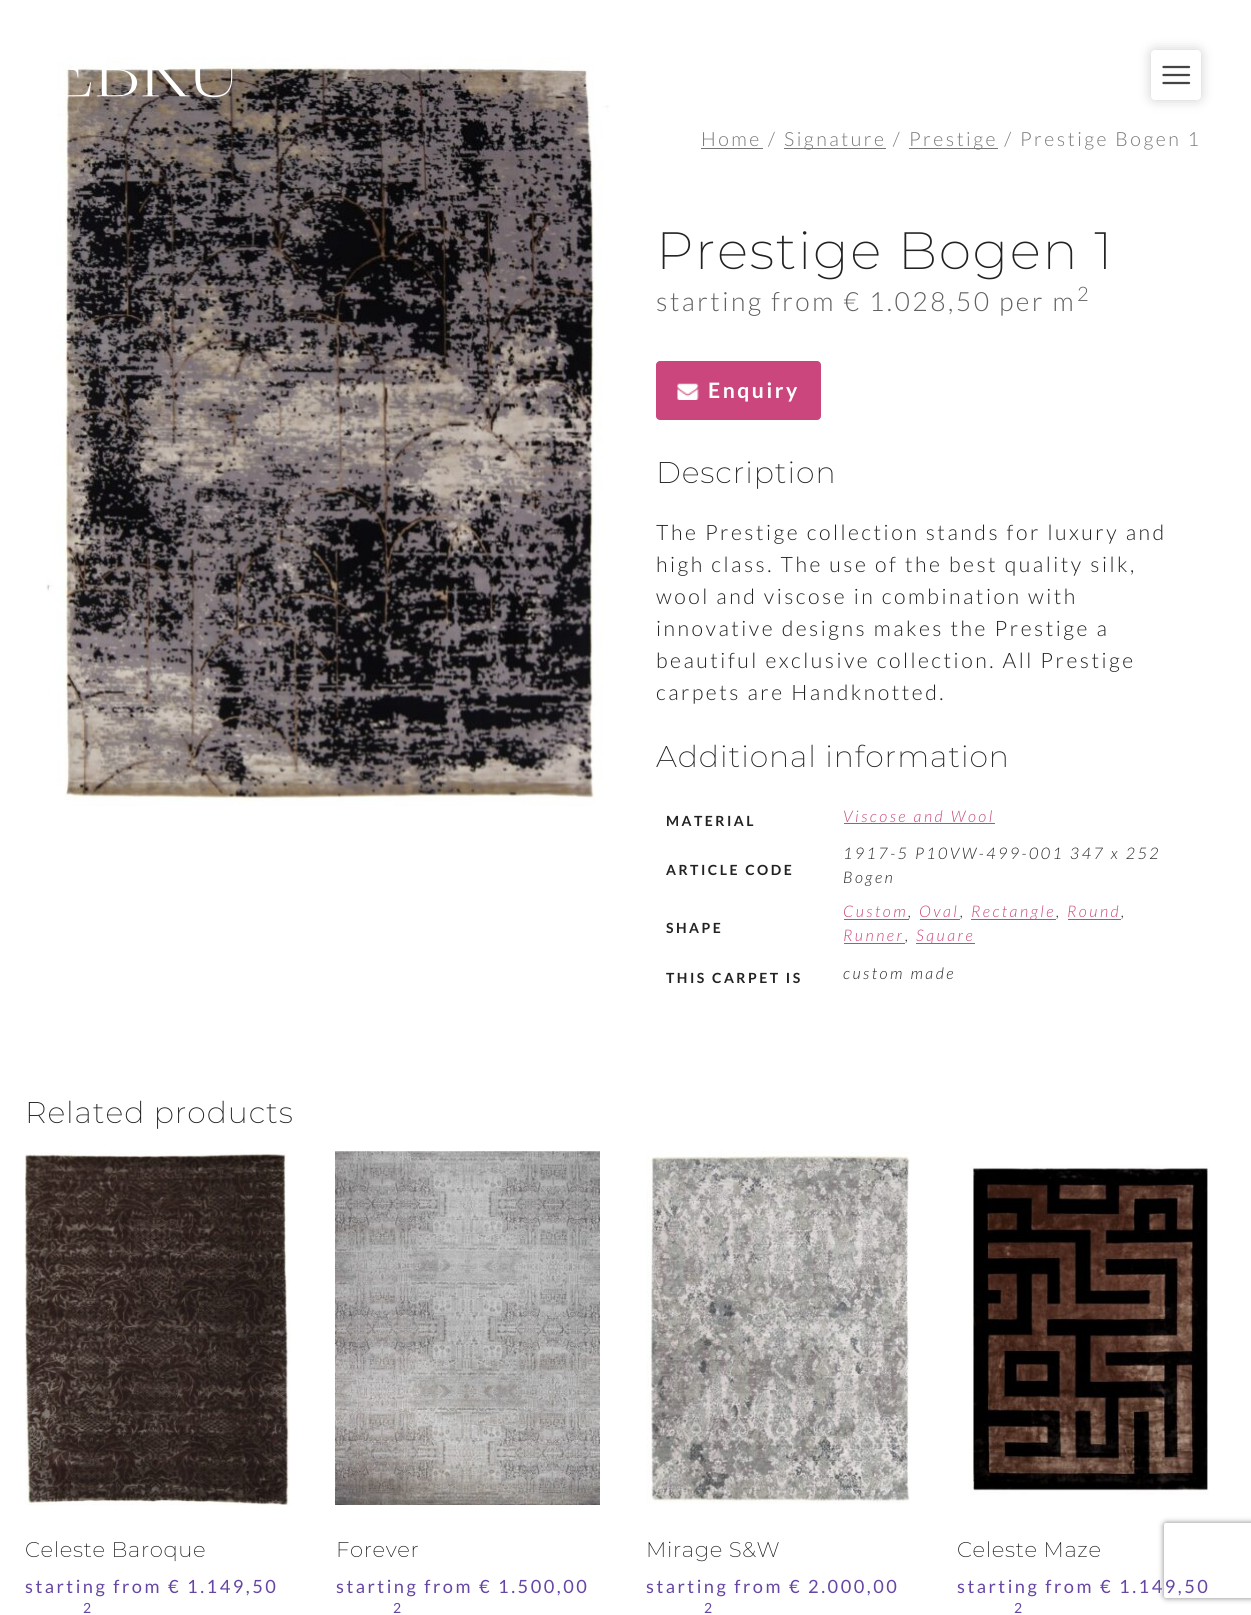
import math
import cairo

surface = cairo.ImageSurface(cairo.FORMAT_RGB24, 1251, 1615)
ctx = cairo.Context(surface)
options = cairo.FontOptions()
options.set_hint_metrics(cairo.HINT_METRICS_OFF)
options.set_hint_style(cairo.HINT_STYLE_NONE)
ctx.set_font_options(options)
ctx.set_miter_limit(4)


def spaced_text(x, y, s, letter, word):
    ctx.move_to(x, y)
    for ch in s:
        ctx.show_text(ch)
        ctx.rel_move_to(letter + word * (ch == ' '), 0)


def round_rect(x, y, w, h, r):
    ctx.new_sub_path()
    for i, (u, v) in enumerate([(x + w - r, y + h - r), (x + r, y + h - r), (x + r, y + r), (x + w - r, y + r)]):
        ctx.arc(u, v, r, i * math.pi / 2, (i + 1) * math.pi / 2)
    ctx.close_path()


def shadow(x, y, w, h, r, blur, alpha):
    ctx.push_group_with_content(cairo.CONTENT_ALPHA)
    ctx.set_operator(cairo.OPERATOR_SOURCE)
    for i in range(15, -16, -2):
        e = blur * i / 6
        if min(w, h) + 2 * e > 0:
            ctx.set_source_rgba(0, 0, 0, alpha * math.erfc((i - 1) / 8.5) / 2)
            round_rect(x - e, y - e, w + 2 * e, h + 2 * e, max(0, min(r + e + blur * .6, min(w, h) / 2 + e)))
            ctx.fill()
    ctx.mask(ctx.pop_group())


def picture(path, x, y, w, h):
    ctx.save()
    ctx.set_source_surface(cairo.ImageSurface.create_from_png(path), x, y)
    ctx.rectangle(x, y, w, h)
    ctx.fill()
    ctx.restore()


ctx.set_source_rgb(1, 1, 1)
ctx.paint()
picture("img2.png", 46, 57, 563, 749)
picture("img1.png", 66, 66, 167, 32)
ctx.set_source_rgb(0, 0, 0)
shadow(1151, 50, 50, 50, 4, 6, 0.2)
ctx.set_source_rgb(1, 1, 1)
round_rect(1151, 50, 50, 50, 4)
ctx.fill()
ctx.new_path()
ctx.move_to(1163.5, 67)
ctx.line_to(1189, 67)
ctx.move_to(1163.5, 75)
ctx.line_to(1189, 75)
ctx.move_to(1163.5, 83)
ctx.line_to(1189, 83)
ctx.set_source_rgb(0.267, 0.267, 0.267)
ctx.set_line_width(2.3)
ctx.set_line_cap(cairo.LINE_CAP_ROUND)
ctx.set_line_join(cairo.LINE_JOIN_ROUND)
ctx.stroke()
ctx.select_font_face("Lato Light")
ctx.set_font_size(19.5)
ctx.set_source_rgb(0.463, 0.463, 0.463)
spaced_text(701, 146, "Home /", 2.5, 0)
ctx.rectangle(701, 148, 62, 1)
ctx.fill()
ctx.rectangle(784, 148, 102, 1)
ctx.fill()
spaced_text(784, 146, "Signature /", 2.5, 0)
ctx.rectangle(909, 148, 89, 1)
ctx.fill()
spaced_text(909, 146, "Prestige / Prestige Bogen 1", 2.5, 0)
ctx.select_font_face("Montserrat ExtraLight")
ctx.set_font_size(52.5)
ctx.set_source_rgb(0.133, 0.133, 0.133)
spaced_text(656, 269, "Prestige Bogen 1", 1.6, 0)
ctx.select_font_face("Lato Light")
ctx.set_font_size(26.5)
ctx.set_source_rgb(0.376, 0.376, 0.376)
spaced_text(656, 311, "starting from € 1.028,50 per m", 2.5, 0)
ctx.set_font_size(20)
spaced_text(1077, 301, "2", 2.5, 0)
ctx.set_source_rgb(0.792, 0.275, 0.486)
round_rect(656, 361, 165, 59, 4)
ctx.fill()
picture("img3.png", 677, 383, 22, 17)
ctx.select_font_face("Lato", cairo.FONT_SLANT_NORMAL, cairo.FONT_WEIGHT_BOLD)
ctx.set_font_size(21.25)
ctx.set_source_rgb(1, 1, 1)
spaced_text(708, 398, "Enquiry", 2.5, 0)
ctx.select_font_face("Montserrat ExtraLight")
ctx.set_font_size(30)
ctx.set_source_rgb(0.133, 0.133, 0.133)
spaced_text(656, 483, "Description", 0.9, 0)
ctx.select_font_face("Lato Light")
ctx.set_font_size(21.25)
spaced_text(656, 540, "The Prestige collection stands for luxury and", 2.5, 0)
spaced_text(656, 572, "high class. The use of the best quality silk,", 2.5, 0)
spaced_text(656, 604, "wool and viscose in combination with", 2.5, 0)
spaced_text(656, 636, "innovative designs makes the Prestige a", 2.5, 0)
spaced_text(656, 668, "beautiful exclusive collection. All Prestige", 2.5, 0)
spaced_text(656, 700, "carpets are Handknotted.", 2.5, 0)
ctx.select_font_face("Montserrat ExtraLight")
ctx.set_font_size(30)
spaced_text(656, 767, "Additional information", 0.9, 0)
ctx.select_font_face("Lato", cairo.FONT_SLANT_NORMAL, cairo.FONT_WEIGHT_BOLD)
ctx.set_font_size(14)
spaced_text(666, 826, "MATERIAL", 2.5, 0)
ctx.select_font_face("Lato Light", cairo.FONT_SLANT_ITALIC)
ctx.set_font_size(16)
ctx.set_source_rgb(0.792, 0.275, 0.486)
spaced_text(843, 822, "Viscose and Wool", 2.5, 0)
ctx.rectangle(844, 823, 151, 1)
ctx.fill()
ctx.select_font_face("Lato", cairo.FONT_SLANT_NORMAL, cairo.FONT_WEIGHT_BOLD)
ctx.set_font_size(14)
ctx.set_source_rgb(0.133, 0.133, 0.133)
spaced_text(666, 875, "ARTICLE CODE", 2.5, 0)
ctx.select_font_face("Lato Light", cairo.FONT_SLANT_ITALIC)
ctx.set_font_size(16)
spaced_text(843, 859, "1917-5 P10VW-499-001 347 x 252", 2.5, 0)
spaced_text(843, 883, "Bogen", 2.5, 0)
ctx.select_font_face("Lato", cairo.FONT_SLANT_NORMAL, cairo.FONT_WEIGHT_BOLD)
ctx.set_font_size(14)
spaced_text(666, 933, "SHAPE", 2.5, 0)
ctx.select_font_face("Lato Light", cairo.FONT_SLANT_ITALIC)
ctx.set_font_size(16)
ctx.set_source_rgb(0.792, 0.275, 0.486)
spaced_text(843, 917, "Custom", 2.5, 0)
ctx.rectangle(844, 919, 65, 1)
ctx.fill()
ctx.set_source_rgb(0.133, 0.133, 0.133)
spaced_text(908, 917, ",", 2.5, 0)
ctx.set_source_rgb(0.792, 0.275, 0.486)
spaced_text(919, 917, "Oval", 2.5, 0)
ctx.rectangle(920, 919, 40, 1)
ctx.fill()
ctx.set_source_rgb(0.133, 0.133, 0.133)
spaced_text(960, 917, ",", 2.5, 0)
ctx.set_source_rgb(0.792, 0.275, 0.486)
ctx.rectangle(971, 919, 85, 1)
ctx.fill()
spaced_text(971, 917, "Rectangle", 2.5, 0)
ctx.set_source_rgb(0.133, 0.133, 0.133)
spaced_text(1056, 917, ",", 2.5, 0)
ctx.set_source_rgb(0.792, 0.275, 0.486)
spaced_text(1067, 917, "Round", 2.5, 0)
ctx.rectangle(1068, 919, 53, 1)
ctx.fill()
ctx.set_source_rgb(0.133, 0.133, 0.133)
spaced_text(1121, 917, ",", 2.5, 0)
ctx.set_source_rgb(0.792, 0.275, 0.486)
spaced_text(843, 941, "Runner", 2.5, 0)
ctx.rectangle(844, 943, 61, 1)
ctx.fill()
ctx.set_source_rgb(0.133, 0.133, 0.133)
spaced_text(905, 941, ",", 2.5, 0)
ctx.set_source_rgb(0.792, 0.275, 0.486)
ctx.rectangle(916, 943, 59, 1)
ctx.fill()
spaced_text(916, 941, "Square", 2.5, 0)
ctx.select_font_face("Lato", cairo.FONT_SLANT_NORMAL, cairo.FONT_WEIGHT_BOLD)
ctx.set_font_size(14)
ctx.set_source_rgb(0.133, 0.133, 0.133)
spaced_text(666, 983, "THIS CARPET IS", 2.5, 0)
ctx.select_font_face("Lato Light", cairo.FONT_SLANT_ITALIC)
ctx.set_font_size(16)
spaced_text(843, 979, "custom made", 2.5, 0)
ctx.select_font_face("Montserrat ExtraLight")
ctx.set_font_size(30)
spaced_text(25, 1123, "Related products", 0.9, 0)
picture("img4.png", 25, 1151, 265, 354)
ctx.set_font_size(21.25)
ctx.set_source_rgb(0.067, 0.067, 0.067)
spaced_text(25, 1557, "Celeste Baroque", 0.6, 0)
ctx.select_font_face("Lato")
ctx.set_font_size(18.25)
ctx.set_source_rgb(0.4, 0.275, 0.647)
spaced_text(25, 1593, "starting from € 1.149,50", 2.5, 0)
ctx.set_font_size(14)
spaced_text(83, 1613, "2", 2.5, 0)
picture("img5.png", 335, 1151, 265, 354)
ctx.select_font_face("Montserrat ExtraLight")
ctx.set_font_size(21.25)
ctx.set_source_rgb(0.067, 0.067, 0.067)
spaced_text(336, 1557, "Forever", 0.6, 0)
ctx.select_font_face("Lato")
ctx.set_font_size(18.25)
ctx.set_source_rgb(0.4, 0.275, 0.647)
spaced_text(336, 1593, "starting from € 1.500,00", 2.5, 0)
ctx.set_font_size(14)
spaced_text(393, 1613, "2", 2.5, 0)
picture("img6.png", 646, 1151, 264, 353)
ctx.select_font_face("Montserrat ExtraLight")
ctx.set_font_size(21.25)
ctx.set_source_rgb(0.067, 0.067, 0.067)
spaced_text(646, 1557, "Mirage S&W", 0.6, 0)
ctx.select_font_face("Lato")
ctx.set_font_size(18.25)
ctx.set_source_rgb(0.4, 0.275, 0.647)
spaced_text(646, 1593, "starting from € 2.000,00", 2.5, 0)
ctx.set_font_size(14)
spaced_text(704, 1613, "2", 2.5, 0)
picture("img7.png", 970, 1165, 239, 330)
ctx.select_font_face("Montserrat ExtraLight")
ctx.set_font_size(21.25)
ctx.set_source_rgb(0.067, 0.067, 0.067)
spaced_text(957, 1557, "Celeste Maze", 0.6, 0)
ctx.select_font_face("Lato")
ctx.set_font_size(18.25)
ctx.set_source_rgb(0.4, 0.275, 0.647)
spaced_text(957, 1593, "starting from € 1.149,50", 2.5, 0)
ctx.set_font_size(14)
spaced_text(1014, 1613, "2", 2.5, 0)
ctx.save()
ctx.set_fill_rule(cairo.FILL_RULE_EVEN_ODD)
ctx.new_path()
ctx.move_to(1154, 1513)
ctx.line_to(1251, 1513)
ctx.line_to(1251, 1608)
ctx.line_to(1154, 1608)
ctx.close_path()
ctx.move_to(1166.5, 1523)
ctx.line_to(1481.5, 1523)
ctx.curve_to(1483, 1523, 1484, 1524, 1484, 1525.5)
ctx.line_to(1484, 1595.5)
ctx.curve_to(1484, 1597, 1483, 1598, 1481.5, 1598)
ctx.line_to(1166.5, 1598)
ctx.curve_to(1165, 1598, 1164, 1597, 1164, 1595.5)
ctx.line_to(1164, 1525.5)
ctx.curve_to(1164, 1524, 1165, 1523, 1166.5, 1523)
ctx.close_path()
ctx.clip()
ctx.set_source_rgb(0.502, 0.502, 0.502)
shadow(1164, 1523, 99, 75, 2.5, 3, 1)
ctx.restore()
surface.write_to_png("page.png")
